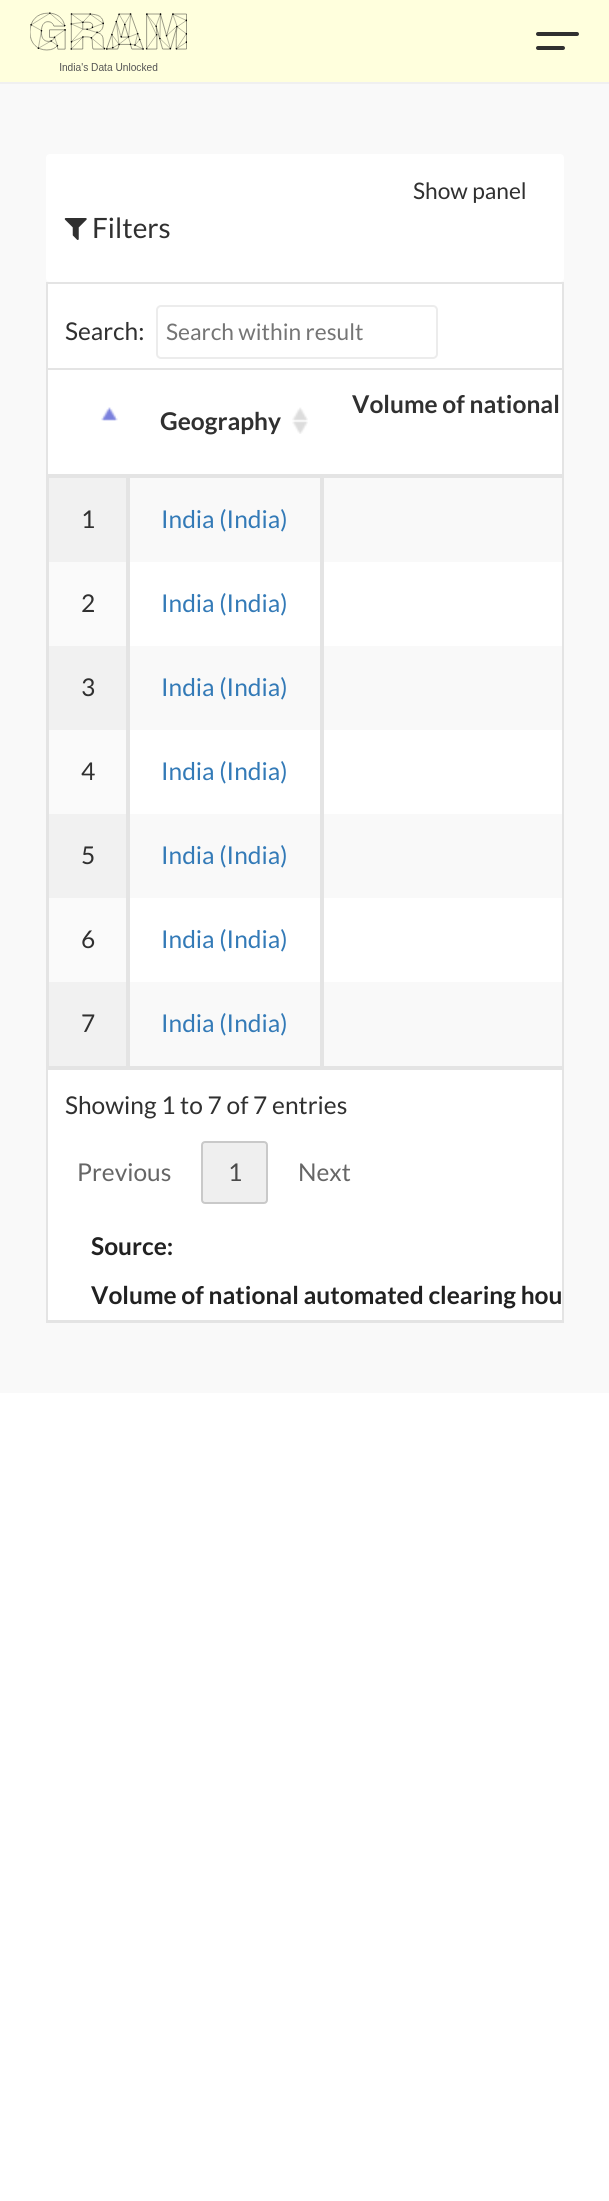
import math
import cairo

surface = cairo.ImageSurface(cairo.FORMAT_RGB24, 609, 2201)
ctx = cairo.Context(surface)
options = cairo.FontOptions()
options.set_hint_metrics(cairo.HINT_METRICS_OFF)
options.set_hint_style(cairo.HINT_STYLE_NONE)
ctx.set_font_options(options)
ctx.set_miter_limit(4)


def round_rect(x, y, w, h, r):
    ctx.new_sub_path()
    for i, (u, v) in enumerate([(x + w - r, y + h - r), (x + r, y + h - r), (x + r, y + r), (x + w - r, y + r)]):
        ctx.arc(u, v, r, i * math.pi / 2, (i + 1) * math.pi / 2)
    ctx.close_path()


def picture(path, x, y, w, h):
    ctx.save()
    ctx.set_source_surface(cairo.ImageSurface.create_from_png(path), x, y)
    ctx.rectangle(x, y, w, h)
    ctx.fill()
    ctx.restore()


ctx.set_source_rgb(1, 1, 1)
ctx.paint()
ctx.set_source_rgb(0.941, 0.941, 0.941)
ctx.rectangle(0, 82, 609, 2)
ctx.fill()
ctx.set_source_rgb(1, 1, 0.867)
ctx.rectangle(0, 0, 609, 82)
ctx.fill()
picture("img1.png", 30, 12, 157, 59)
ctx.set_source_rgb(0.188, 0.188, 0.188)
round_rect(536, 32, 43, 4, 2)
ctx.fill()
round_rect(536, 46, 29, 4, 2)
ctx.fill()
ctx.set_source_rgb(0.976, 0.976, 0.976)
ctx.rectangle(0, 84, 609, 1309)
ctx.fill()
ctx.set_source_rgb(1, 1, 1)
round_rect(46, 154, 518, 128, 4)
ctx.fill()
ctx.select_font_face("Lato")
ctx.set_font_size(22.75)
ctx.set_source_rgb(0.188, 0.188, 0.188)
ctx.move_to(413, 199)
ctx.show_text("Show panel")
picture("img2.png", 64, 218, 23, 22)
ctx.set_font_size(28)
ctx.move_to(92, 238)
ctx.show_text("Filters")
ctx.set_source_rgb(1, 1, 1)
ctx.rectangle(48, 284, 514, 1036)
ctx.fill()
ctx.rectangle(47, 283, 516, 1039)
ctx.set_source_rgb(0.894, 0.894, 0.894)
ctx.stroke()
ctx.set_font_size(24.5)
ctx.set_source_rgb(0.188, 0.188, 0.188)
ctx.move_to(65, 340)
ctx.show_text("Search:")
round_rect(157, 306, 280, 52, 4)
ctx.set_source_rgb(0.922, 0.922, 0.922)
ctx.stroke()
ctx.set_font_size(22.75)
ctx.set_source_rgb(0.459, 0.459, 0.459)
ctx.move_to(166, 340)
ctx.show_text("Search within result")
ctx.set_source_rgb(0.894, 0.894, 0.894)
ctx.rectangle(47, 368, 515, 2)
ctx.fill()
ctx.rectangle(47, 1066, 515, 4)
ctx.fill()
ctx.select_font_face("Lato", cairo.FONT_SLANT_NORMAL, cairo.FONT_WEIGHT_BOLD)
ctx.set_font_size(24.5)
ctx.set_source_rgb(0.188, 0.188, 0.188)
ctx.move_to(352, 413)
ctx.show_text("Volume of national")
picture("img3.png", 101, 407, 17, 14)
ctx.set_source_rgb(0.894, 0.894, 0.894)
ctx.rectangle(47, 474, 515, 4)
ctx.fill()
picture("img4.png", 292, 407, 16, 27)
ctx.set_source_rgb(0.188, 0.188, 0.188)
ctx.move_to(160, 430)
ctx.show_text("Geography")
ctx.set_source_rgb(0.976, 0.976, 0.976)
ctx.rectangle(130, 478, 432, 84)
ctx.fill()
ctx.set_source_rgb(0.945, 0.945, 0.945)
ctx.rectangle(49, 478, 77, 84)
ctx.fill()
ctx.set_source_rgb(0.894, 0.894, 0.894)
ctx.rectangle(126, 478, 4, 84)
ctx.fill()
ctx.rectangle(48, 478, 1, 588)
ctx.fill()
ctx.select_font_face("Lato")
ctx.set_source_rgb(0.188, 0.188, 0.188)
ctx.move_to(81, 528)
ctx.show_text("1")
ctx.set_source_rgb(0.894, 0.894, 0.894)
ctx.rectangle(320, 478, 4, 84)
ctx.fill()
ctx.set_source_rgb(0.2, 0.478, 0.718)
ctx.move_to(161, 528)
ctx.show_text("India (India)")
ctx.set_source_rgb(0.98, 0.98, 0.98)
ctx.rectangle(49, 562, 77, 84)
ctx.fill()
ctx.set_source_rgb(0.894, 0.894, 0.894)
ctx.rectangle(126, 562, 4, 84)
ctx.fill()
ctx.set_source_rgb(0.188, 0.188, 0.188)
ctx.move_to(81, 612)
ctx.show_text("2")
ctx.set_source_rgb(0.894, 0.894, 0.894)
ctx.rectangle(320, 562, 4, 84)
ctx.fill()
ctx.set_source_rgb(0.2, 0.478, 0.718)
ctx.move_to(161, 612)
ctx.show_text("India (India)")
ctx.set_source_rgb(0.976, 0.976, 0.976)
ctx.rectangle(130, 646, 432, 84)
ctx.fill()
ctx.set_source_rgb(0.945, 0.945, 0.945)
ctx.rectangle(49, 646, 77, 84)
ctx.fill()
ctx.set_source_rgb(0.894, 0.894, 0.894)
ctx.rectangle(126, 646, 4, 84)
ctx.fill()
ctx.set_source_rgb(0.188, 0.188, 0.188)
ctx.move_to(81, 696)
ctx.show_text("3")
ctx.set_source_rgb(0.894, 0.894, 0.894)
ctx.rectangle(320, 646, 4, 84)
ctx.fill()
ctx.set_source_rgb(0.2, 0.478, 0.718)
ctx.move_to(161, 696)
ctx.show_text("India (India)")
ctx.set_source_rgb(0.98, 0.98, 0.98)
ctx.rectangle(49, 730, 77, 84)
ctx.fill()
ctx.set_source_rgb(0.894, 0.894, 0.894)
ctx.rectangle(126, 730, 4, 84)
ctx.fill()
ctx.set_source_rgb(0.188, 0.188, 0.188)
ctx.move_to(81, 780)
ctx.show_text("4")
ctx.set_source_rgb(0.894, 0.894, 0.894)
ctx.rectangle(320, 730, 4, 84)
ctx.fill()
ctx.set_source_rgb(0.2, 0.478, 0.718)
ctx.move_to(161, 780)
ctx.show_text("India (India)")
ctx.set_source_rgb(0.976, 0.976, 0.976)
ctx.rectangle(130, 814, 432, 84)
ctx.fill()
ctx.set_source_rgb(0.945, 0.945, 0.945)
ctx.rectangle(49, 814, 77, 84)
ctx.fill()
ctx.set_source_rgb(0.894, 0.894, 0.894)
ctx.rectangle(126, 814, 4, 84)
ctx.fill()
ctx.set_source_rgb(0.188, 0.188, 0.188)
ctx.move_to(81, 864)
ctx.show_text("5")
ctx.set_source_rgb(0.894, 0.894, 0.894)
ctx.rectangle(320, 814, 4, 84)
ctx.fill()
ctx.set_source_rgb(0.2, 0.478, 0.718)
ctx.move_to(161, 864)
ctx.show_text("India (India)")
ctx.set_source_rgb(0.98, 0.98, 0.98)
ctx.rectangle(49, 898, 77, 84)
ctx.fill()
ctx.set_source_rgb(0.894, 0.894, 0.894)
ctx.rectangle(126, 898, 4, 84)
ctx.fill()
ctx.set_source_rgb(0.188, 0.188, 0.188)
ctx.move_to(81, 948)
ctx.show_text("6")
ctx.set_source_rgb(0.894, 0.894, 0.894)
ctx.rectangle(320, 898, 4, 84)
ctx.fill()
ctx.set_source_rgb(0.2, 0.478, 0.718)
ctx.move_to(161, 948)
ctx.show_text("India (India)")
ctx.set_source_rgb(0.976, 0.976, 0.976)
ctx.rectangle(130, 982, 432, 84)
ctx.fill()
ctx.set_source_rgb(0.945, 0.945, 0.945)
ctx.rectangle(49, 982, 77, 84)
ctx.fill()
ctx.set_source_rgb(0.894, 0.894, 0.894)
ctx.rectangle(126, 982, 4, 84)
ctx.fill()
ctx.set_source_rgb(0.188, 0.188, 0.188)
ctx.move_to(81, 1032)
ctx.show_text("7")
ctx.set_source_rgb(0.894, 0.894, 0.894)
ctx.rectangle(320, 982, 4, 84)
ctx.fill()
ctx.set_source_rgb(0.2, 0.478, 0.718)
ctx.move_to(161, 1032)
ctx.show_text("India (India)")
ctx.set_source_rgb(0.188, 0.188, 0.188)
ctx.move_to(65, 1114)
ctx.show_text("Showing 1 to 7 of 7 entries")
ctx.set_source_rgb(0.4, 0.4, 0.4)
ctx.move_to(77, 1181)
ctx.show_text("Previous")
ctx.set_source_rgb(0.937, 0.937, 0.937)
round_rect(202, 1142, 65, 61, 3)
ctx.fill_preserve()
ctx.set_source_rgb(0.788, 0.788, 0.788)
ctx.stroke()
ctx.set_source_rgb(0.29, 0.29, 0.29)
ctx.move_to(228, 1181)
ctx.show_text("1")
ctx.set_source_rgb(0.4, 0.4, 0.4)
ctx.move_to(298, 1181)
ctx.show_text("Next")
ctx.select_font_face("Lato", cairo.FONT_SLANT_NORMAL, cairo.FONT_WEIGHT_BOLD)
ctx.set_source_rgb(0.129, 0.129, 0.129)
ctx.move_to(91, 1255)
ctx.show_text("Source:")
ctx.move_to(91, 1304)
ctx.show_text("Volume of national automated clearing hou")
ctx.set_source_rgb(0.894, 0.894, 0.894)
ctx.rectangle(47, 1320, 515, 1)
ctx.fill()
surface.write_to_png("page.png")
